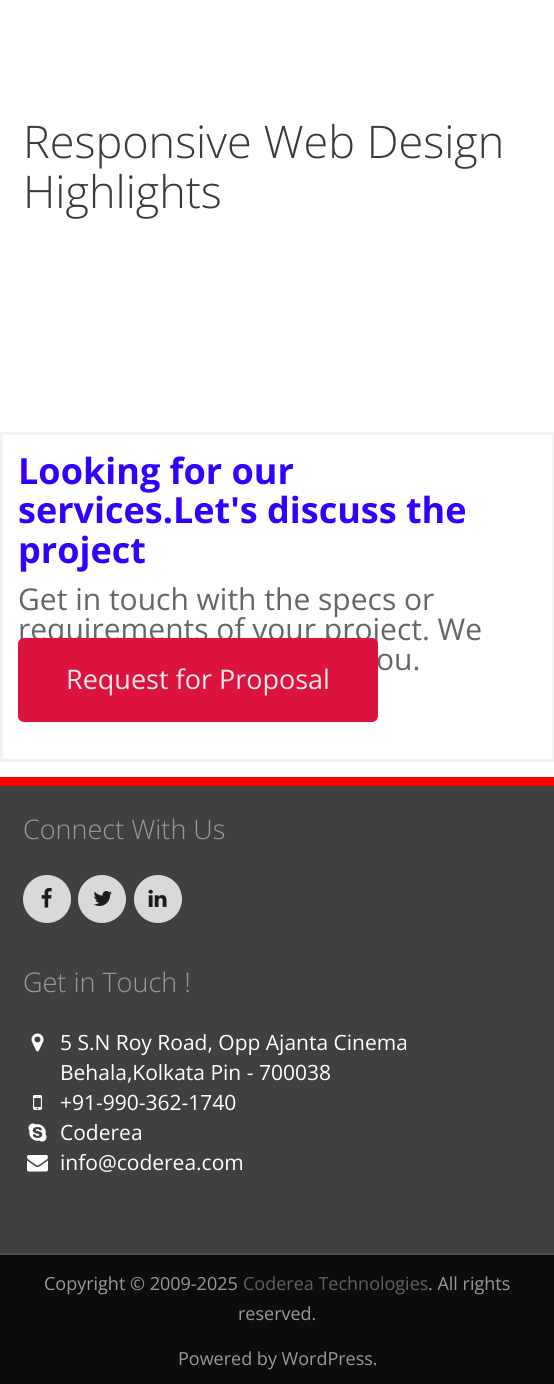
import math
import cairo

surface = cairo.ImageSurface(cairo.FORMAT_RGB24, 554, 1384)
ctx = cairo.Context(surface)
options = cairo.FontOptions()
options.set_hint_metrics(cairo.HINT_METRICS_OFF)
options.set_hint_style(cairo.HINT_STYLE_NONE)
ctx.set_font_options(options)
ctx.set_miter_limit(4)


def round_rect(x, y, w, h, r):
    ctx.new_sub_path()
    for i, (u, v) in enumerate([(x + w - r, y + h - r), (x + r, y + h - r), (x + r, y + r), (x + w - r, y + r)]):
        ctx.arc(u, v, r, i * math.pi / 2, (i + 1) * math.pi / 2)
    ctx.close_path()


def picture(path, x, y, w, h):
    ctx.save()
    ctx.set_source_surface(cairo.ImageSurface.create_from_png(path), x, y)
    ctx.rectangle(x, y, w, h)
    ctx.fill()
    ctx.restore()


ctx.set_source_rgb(1, 1, 1)
ctx.paint()
ctx.select_font_face("Open Sans Light")
ctx.set_font_size(45)
ctx.set_source_rgb(0.227, 0.227, 0.227)
ctx.move_to(23, 158)
ctx.show_text("Responsive Web Design")
ctx.move_to(23, 208)
ctx.show_text("Highlights")
ctx.rectangle(1.5, 433.5, 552, 327)
ctx.set_source_rgb(0.949, 0.949, 0.949)
ctx.set_line_width(3)
ctx.stroke()
ctx.select_font_face("Open Sans", cairo.FONT_SLANT_NORMAL, cairo.FONT_WEIGHT_BOLD)
ctx.set_font_size(36)
ctx.set_source_rgb(0.2, 0, 1)
ctx.move_to(18, 484)
ctx.show_text("Looking for our")
ctx.move_to(18, 523)
ctx.show_text("services.Let's discuss the")
ctx.move_to(18, 563)
ctx.show_text("project")
ctx.select_font_face("Open Sans")
ctx.set_font_size(30)
ctx.set_source_rgb(0.4, 0.4, 0.4)
ctx.move_to(18, 610)
ctx.show_text("Get in touch with the specs or")
ctx.move_to(18, 640)
ctx.show_text("requirements of your project. We")
ctx.move_to(376, 670)
ctx.show_text("ou.")
ctx.set_source_rgb(0.863, 0.078, 0.235)
round_rect(18, 638, 360, 84, 6)
ctx.fill()
ctx.set_font_size(27)
ctx.set_source_rgb(0.988, 0.91, 0.925)
ctx.move_to(66, 689)
ctx.show_text("Request for Proposal")
ctx.set_source_rgb(0.251, 0.251, 0.251)
ctx.rectangle(0, 786, 554, 467)
ctx.fill()
ctx.set_source_rgb(1, 0, 0)
ctx.rectangle(0, 777, 554, 9)
ctx.fill()
ctx.select_font_face("Open Sans Light")
ctx.set_source_rgb(0.6, 0.6, 0.6)
ctx.move_to(23, 839)
ctx.show_text("Connect With Us")
ctx.set_source_rgb(0.851, 0.851, 0.851)
ctx.new_path()
ctx.arc(47, 899, 24, 0, 2 * math.pi)
ctx.fill()
picture("img1.png", 41, 888, 11, 20)
ctx.arc(102, 899, 24, 0, 2 * math.pi)
ctx.fill()
picture("img2.png", 93, 891, 19, 15)
ctx.arc(158, 899, 24, 0, 2 * math.pi)
ctx.fill()
picture("img3.png", 148, 889, 19, 18)
ctx.set_source_rgb(0.6, 0.6, 0.6)
ctx.move_to(23, 992)
ctx.show_text("Get in Touch !")
picture("img4.png", 31, 1033, 13, 19)
ctx.select_font_face("Open Sans")
ctx.set_font_size(21)
ctx.set_source_rgb(1, 1, 1)
ctx.move_to(60, 1050)
ctx.show_text("5 S.N Roy Road, Opp Ajanta Cinema")
ctx.move_to(60, 1080)
ctx.show_text("Behala,Kolkata Pin - 700038")
picture("img5.png", 33, 1095, 9, 15)
ctx.move_to(60, 1110)
ctx.show_text("+91-990-362-1740")
picture("img6.png", 28, 1123, 19, 19)
ctx.move_to(60, 1140)
ctx.show_text("Coderea")
picture("img7.png", 27, 1155, 21, 17)
ctx.move_to(60, 1170)
ctx.show_text("info@coderea.com")
ctx.set_source_rgb(0.047, 0.047, 0.047)
ctx.rectangle(0, 1255, 554, 129)
ctx.fill()
ctx.set_source_rgb(0.29, 0.29, 0.29)
ctx.rectangle(0, 1253, 554, 2)
ctx.fill()
ctx.set_font_size(18)
ctx.set_source_rgb(0.6, 0.6, 0.6)
ctx.move_to(44, 1290)
ctx.show_text("Copyright © 2009-2025")
ctx.set_source_rgb(0.376, 0.376, 0.376)
ctx.move_to(243, 1290)
ctx.show_text("Coderea Technologies")
ctx.set_source_rgb(0.6, 0.6, 0.6)
ctx.move_to(428, 1290)
ctx.show_text(". All rights")
ctx.move_to(238, 1320)
ctx.show_text("reserved.")
ctx.move_to(178, 1365)
ctx.show_text("Powered by WordPress.")
surface.write_to_png("page.png")
